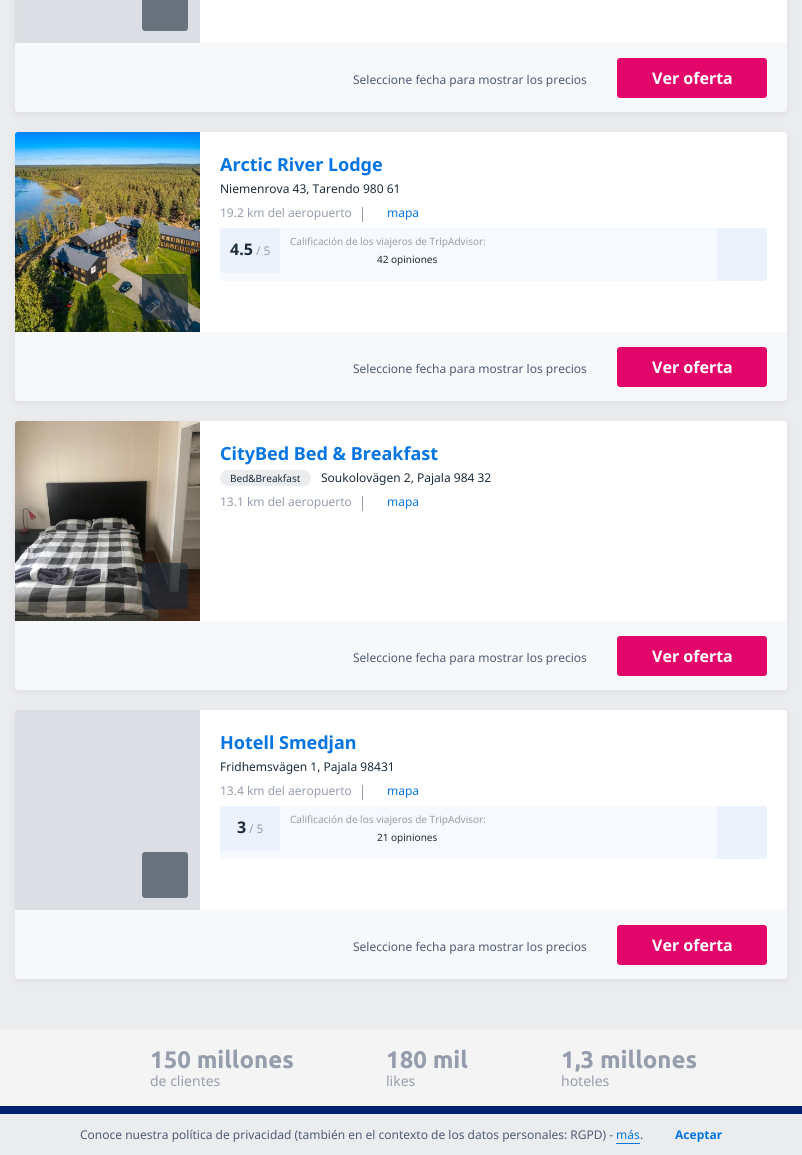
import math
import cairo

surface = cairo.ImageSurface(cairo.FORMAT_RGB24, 802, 1155)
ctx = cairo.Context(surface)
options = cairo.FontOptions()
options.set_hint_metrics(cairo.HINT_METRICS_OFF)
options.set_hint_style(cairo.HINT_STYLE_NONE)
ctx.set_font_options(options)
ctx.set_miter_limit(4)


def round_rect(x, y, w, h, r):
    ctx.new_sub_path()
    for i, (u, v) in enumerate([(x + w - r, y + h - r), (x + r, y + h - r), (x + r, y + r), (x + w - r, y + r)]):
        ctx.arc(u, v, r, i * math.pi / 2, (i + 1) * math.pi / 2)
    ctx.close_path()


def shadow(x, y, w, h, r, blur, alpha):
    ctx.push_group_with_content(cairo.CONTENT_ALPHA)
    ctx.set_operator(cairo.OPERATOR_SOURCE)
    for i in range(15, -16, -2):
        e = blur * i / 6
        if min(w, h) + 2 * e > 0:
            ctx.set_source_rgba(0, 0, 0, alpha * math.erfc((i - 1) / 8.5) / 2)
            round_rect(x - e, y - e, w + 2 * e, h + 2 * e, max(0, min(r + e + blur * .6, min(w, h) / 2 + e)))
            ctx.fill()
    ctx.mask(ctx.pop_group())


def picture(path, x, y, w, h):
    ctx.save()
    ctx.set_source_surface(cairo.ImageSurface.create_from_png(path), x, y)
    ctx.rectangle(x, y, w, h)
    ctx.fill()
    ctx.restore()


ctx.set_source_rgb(0.918, 0.922, 0.933)
ctx.paint()
ctx.set_source_rgb(0.863, 0.871, 0.89)
shadow(15, -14, 772, 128, 3, 3.5, 1)
ctx.set_source_rgb(1, 1, 1)
ctx.rectangle(200, 0, 587, 43)
ctx.fill()
ctx.set_source_rgb(0.863, 0.871, 0.89)
ctx.rectangle(15, 0, 3, 43)
ctx.fill()
ctx.set_source_rgb(0.412, 0.451, 0.49)
round_rect(142, -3, 46, 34, 3)
ctx.fill()
ctx.set_source_rgb(0.965, 0.969, 0.973)
ctx.new_path()
ctx.move_to(15, 43)
ctx.line_to(787, 43)
ctx.line_to(787, 109)
ctx.curve_to(787, 110.5, 785.5, 112, 784, 112)
ctx.line_to(18, 112)
ctx.curve_to(16.5, 112, 15, 110.5, 15, 109)
ctx.close_path()
ctx.fill()
ctx.select_font_face("Noto Sans")
ctx.set_font_size(12)
ctx.set_source_rgb(0.314, 0.361, 0.459)
ctx.move_to(353, 84)
ctx.show_text("Seleccione fecha para mostrar los precios")
ctx.set_source_rgb(0.886, 0.027, 0.416)
round_rect(617, 58, 150, 40, 3)
ctx.fill()
ctx.select_font_face("Noto Sans", cairo.FONT_SLANT_NORMAL, cairo.FONT_WEIGHT_BOLD)
ctx.set_font_size(16)
ctx.set_source_rgb(1, 1, 1)
ctx.move_to(652, 84)
ctx.show_text("Ver oferta")
ctx.set_source_rgb(0.863, 0.871, 0.89)
shadow(15, 134, 772, 269, 3, 3.5, 1)
ctx.set_source_rgb(1, 1, 1)
ctx.new_path()
ctx.move_to(18, 132)
ctx.line_to(784, 132)
ctx.curve_to(785.5, 132, 787, 133.5, 787, 135)
ctx.line_to(787, 332)
ctx.line_to(15, 332)
ctx.line_to(15, 135)
ctx.curve_to(15, 133.5, 16.5, 132, 18, 132)
ctx.close_path()
ctx.fill()
picture("img1.png", 15, 132, 185, 200)
ctx.set_source_rgba(0.11, 0.169, 0.224, 0.6)
round_rect(142, 274, 46, 46, 3)
ctx.fill()
ctx.set_font_size(18)
ctx.set_source_rgb(0.027, 0.459, 0.886)
ctx.move_to(220, 171)
ctx.show_text("Arctic River Lodge")
ctx.select_font_face("Noto Sans")
ctx.set_font_size(12)
ctx.set_source_rgb(0.11, 0.169, 0.224)
ctx.move_to(220, 193)
ctx.show_text("Niemenrova 43, Tarendo 980 61")
ctx.set_source_rgb(0.588, 0.616, 0.675)
ctx.move_to(220, 217)
ctx.show_text("19.2 km del aeropuerto")
ctx.rectangle(362, 207, 1, 15)
ctx.fill()
ctx.set_source_rgb(0.027, 0.459, 0.886)
ctx.move_to(387, 217)
ctx.show_text("mapa")
ctx.set_source_rgb(0.961, 0.973, 0.992)
ctx.new_path()
ctx.move_to(223, 228)
ctx.line_to(717, 228)
ctx.line_to(717, 281)
ctx.line_to(223, 281)
ctx.curve_to(221.5, 281, 220, 279.5, 220, 278)
ctx.line_to(220, 231)
ctx.curve_to(220, 229.5, 221.5, 228, 223, 228)
ctx.close_path()
ctx.fill()
ctx.set_source_rgb(0.918, 0.949, 0.988)
round_rect(220, 228, 60, 45, 3)
ctx.fill()
ctx.select_font_face("Noto Sans", cairo.FONT_SLANT_NORMAL, cairo.FONT_WEIGHT_BOLD)
ctx.set_font_size(16)
ctx.set_source_rgb(0.11, 0.169, 0.224)
ctx.move_to(230, 255)
ctx.show_text("4.5")
ctx.select_font_face("Noto Sans")
ctx.set_font_size(12)
ctx.set_source_rgb(0.588, 0.616, 0.675)
ctx.move_to(256, 255)
ctx.show_text("/ 5")
ctx.set_font_size(10)
ctx.move_to(290, 245)
ctx.show_text("Calificación de los viajeros de TripAdvisor:")
ctx.set_source_rgb(0.11, 0.169, 0.224)
ctx.move_to(377, 263)
ctx.show_text("42 opiniones")
ctx.set_source_rgb(0.918, 0.949, 0.988)
ctx.new_path()
ctx.move_to(717, 228)
ctx.line_to(764, 228)
ctx.curve_to(765.5, 228, 767, 229.5, 767, 231)
ctx.line_to(767, 278)
ctx.curve_to(767, 279.5, 765.5, 281, 764, 281)
ctx.line_to(717, 281)
ctx.close_path()
ctx.fill()
ctx.set_source_rgb(0.965, 0.969, 0.973)
ctx.new_path()
ctx.move_to(15, 332)
ctx.line_to(787, 332)
ctx.line_to(787, 398)
ctx.curve_to(787, 399.5, 785.5, 401, 784, 401)
ctx.line_to(18, 401)
ctx.curve_to(16.5, 401, 15, 399.5, 15, 398)
ctx.close_path()
ctx.fill()
ctx.set_font_size(12)
ctx.set_source_rgb(0.314, 0.361, 0.459)
ctx.move_to(353, 373)
ctx.show_text("Seleccione fecha para mostrar los precios")
ctx.set_source_rgb(0.886, 0.027, 0.416)
round_rect(617, 347, 150, 40, 3)
ctx.fill()
ctx.select_font_face("Noto Sans", cairo.FONT_SLANT_NORMAL, cairo.FONT_WEIGHT_BOLD)
ctx.set_font_size(16)
ctx.set_source_rgb(1, 1, 1)
ctx.move_to(652, 373)
ctx.show_text("Ver oferta")
ctx.set_source_rgb(0.863, 0.871, 0.89)
shadow(15, 423, 772, 269, 3, 3.5, 1)
ctx.set_source_rgb(1, 1, 1)
ctx.new_path()
ctx.move_to(18, 421)
ctx.line_to(784, 421)
ctx.curve_to(785.5, 421, 787, 422.5, 787, 424)
ctx.line_to(787, 621)
ctx.line_to(15, 621)
ctx.line_to(15, 424)
ctx.curve_to(15, 422.5, 16.5, 421, 18, 421)
ctx.close_path()
ctx.fill()
picture("img2.png", 15, 421, 185, 200)
ctx.set_source_rgba(0.11, 0.169, 0.224, 0.6)
round_rect(142, 563, 46, 46, 3)
ctx.fill()
ctx.set_font_size(18)
ctx.set_source_rgb(0.027, 0.459, 0.886)
ctx.move_to(220, 460)
ctx.show_text("CityBed Bed & Breakfast")
ctx.set_source_rgb(0.918, 0.922, 0.933)
round_rect(220, 470, 91, 16, 8)
ctx.fill()
ctx.select_font_face("Noto Sans")
ctx.set_font_size(10)
ctx.set_source_rgb(0.11, 0.169, 0.224)
ctx.move_to(230, 482)
ctx.show_text("Bed&Breakfast")
ctx.set_font_size(12)
ctx.move_to(321, 482)
ctx.show_text("Soukolovägen 2, Pajala 984 32")
ctx.set_source_rgb(0.588, 0.616, 0.675)
ctx.move_to(220, 506)
ctx.show_text("13.1 km del aeropuerto")
ctx.rectangle(362, 496, 1, 15)
ctx.fill()
ctx.set_source_rgb(0.027, 0.459, 0.886)
ctx.move_to(387, 506)
ctx.show_text("mapa")
ctx.set_source_rgb(0.965, 0.969, 0.973)
ctx.new_path()
ctx.move_to(15, 621)
ctx.line_to(787, 621)
ctx.line_to(787, 687)
ctx.curve_to(787, 688.5, 785.5, 690, 784, 690)
ctx.line_to(18, 690)
ctx.curve_to(16.5, 690, 15, 688.5, 15, 687)
ctx.close_path()
ctx.fill()
ctx.set_source_rgb(0.314, 0.361, 0.459)
ctx.move_to(353, 662)
ctx.show_text("Seleccione fecha para mostrar los precios")
ctx.set_source_rgb(0.886, 0.027, 0.416)
round_rect(617, 636, 150, 40, 3)
ctx.fill()
ctx.select_font_face("Noto Sans", cairo.FONT_SLANT_NORMAL, cairo.FONT_WEIGHT_BOLD)
ctx.set_font_size(16)
ctx.set_source_rgb(1, 1, 1)
ctx.move_to(652, 662)
ctx.show_text("Ver oferta")
ctx.set_source_rgb(0.863, 0.871, 0.89)
shadow(15, 712, 772, 269, 3, 3.5, 1)
ctx.set_source_rgb(1, 1, 1)
ctx.new_path()
ctx.move_to(18, 710)
ctx.line_to(784, 710)
ctx.curve_to(785.5, 710, 787, 711.5, 787, 713)
ctx.line_to(787, 910)
ctx.line_to(15, 910)
ctx.line_to(15, 713)
ctx.curve_to(15, 711.5, 16.5, 710, 18, 710)
ctx.close_path()
ctx.fill()
ctx.set_source_rgb(0.863, 0.871, 0.89)
ctx.new_path()
ctx.move_to(18, 710)
ctx.line_to(200, 710)
ctx.line_to(200, 910)
ctx.line_to(15, 910)
ctx.line_to(15, 713)
ctx.curve_to(15, 711.5, 16.5, 710, 18, 710)
ctx.close_path()
ctx.fill()
ctx.set_source_rgb(0.412, 0.451, 0.49)
round_rect(142, 852, 46, 46, 3)
ctx.fill()
ctx.set_font_size(18)
ctx.set_source_rgb(0.027, 0.459, 0.886)
ctx.move_to(220, 749)
ctx.show_text("Hotell Smedjan")
ctx.select_font_face("Noto Sans")
ctx.set_font_size(12)
ctx.set_source_rgb(0.11, 0.169, 0.224)
ctx.move_to(220, 771)
ctx.show_text("Fridhemsvägen 1, Pajala 98431")
ctx.set_source_rgb(0.588, 0.616, 0.675)
ctx.move_to(220, 795)
ctx.show_text("13.4 km del aeropuerto")
ctx.rectangle(362, 785, 1, 15)
ctx.fill()
ctx.set_source_rgb(0.027, 0.459, 0.886)
ctx.move_to(387, 795)
ctx.show_text("mapa")
ctx.set_source_rgb(0.961, 0.973, 0.992)
ctx.new_path()
ctx.move_to(223, 806)
ctx.line_to(717, 806)
ctx.line_to(717, 859)
ctx.line_to(223, 859)
ctx.curve_to(221.5, 859, 220, 857.5, 220, 856)
ctx.line_to(220, 809)
ctx.curve_to(220, 807.5, 221.5, 806, 223, 806)
ctx.close_path()
ctx.fill()
ctx.set_source_rgb(0.918, 0.949, 0.988)
round_rect(220, 806, 60, 45, 3)
ctx.fill()
ctx.select_font_face("Noto Sans", cairo.FONT_SLANT_NORMAL, cairo.FONT_WEIGHT_BOLD)
ctx.set_font_size(16)
ctx.set_source_rgb(0.11, 0.169, 0.224)
ctx.move_to(237, 833)
ctx.show_text("3")
ctx.select_font_face("Noto Sans")
ctx.set_font_size(12)
ctx.set_source_rgb(0.588, 0.616, 0.675)
ctx.move_to(249, 833)
ctx.show_text("/ 5")
ctx.set_font_size(10)
ctx.move_to(290, 823)
ctx.show_text("Calificación de los viajeros de TripAdvisor:")
ctx.set_source_rgb(0.11, 0.169, 0.224)
ctx.move_to(377, 841)
ctx.show_text("21 opiniones")
ctx.set_source_rgb(0.918, 0.949, 0.988)
ctx.new_path()
ctx.move_to(717, 806)
ctx.line_to(764, 806)
ctx.curve_to(765.5, 806, 767, 807.5, 767, 809)
ctx.line_to(767, 856)
ctx.curve_to(767, 857.5, 765.5, 859, 764, 859)
ctx.line_to(717, 859)
ctx.close_path()
ctx.fill()
ctx.set_source_rgb(0.965, 0.969, 0.973)
ctx.new_path()
ctx.move_to(15, 910)
ctx.line_to(787, 910)
ctx.line_to(787, 976)
ctx.curve_to(787, 977.5, 785.5, 979, 784, 979)
ctx.line_to(18, 979)
ctx.curve_to(16.5, 979, 15, 977.5, 15, 976)
ctx.close_path()
ctx.fill()
ctx.set_font_size(12)
ctx.set_source_rgb(0.314, 0.361, 0.459)
ctx.move_to(353, 951)
ctx.show_text("Seleccione fecha para mostrar los precios")
ctx.set_source_rgb(0.886, 0.027, 0.416)
round_rect(617, 925, 150, 40, 3)
ctx.fill()
ctx.select_font_face("Noto Sans", cairo.FONT_SLANT_NORMAL, cairo.FONT_WEIGHT_BOLD)
ctx.set_font_size(16)
ctx.set_source_rgb(1, 1, 1)
ctx.move_to(652, 951)
ctx.show_text("Ver oferta")
ctx.set_source_rgb(0, 0.129, 0.447)
ctx.rectangle(0, 1106, 802, 8)
ctx.fill()
ctx.set_source_rgb(0.957, 0.957, 0.957)
ctx.rectangle(0, 1029, 802, 77)
ctx.fill()
ctx.select_font_face("Ubuntu", cairo.FONT_SLANT_NORMAL, cairo.FONT_WEIGHT_BOLD)
ctx.set_font_size(24)
ctx.set_source_rgb(0.588, 0.616, 0.675)
ctx.move_to(150, 1068)
ctx.show_text("150 millones")
ctx.select_font_face("Noto Sans")
ctx.set_font_size(14)
ctx.move_to(150, 1086)
ctx.show_text("de clientes")
ctx.select_font_face("Ubuntu", cairo.FONT_SLANT_NORMAL, cairo.FONT_WEIGHT_BOLD)
ctx.set_font_size(24)
ctx.move_to(386, 1068)
ctx.show_text("180 mil")
ctx.select_font_face("Noto Sans")
ctx.set_font_size(14)
ctx.move_to(386, 1086)
ctx.show_text("likes")
ctx.select_font_face("Ubuntu", cairo.FONT_SLANT_NORMAL, cairo.FONT_WEIGHT_BOLD)
ctx.set_font_size(24)
ctx.move_to(561, 1068)
ctx.show_text("1,3 millones")
ctx.select_font_face("Noto Sans")
ctx.set_font_size(14)
ctx.move_to(561, 1086)
ctx.show_text("hoteles")
ctx.set_font_size(12)
ctx.set_source_rgb(0.314, 0.361, 0.459)
ctx.move_to(80, 1139)
ctx.show_text("Conoce nuestra política de privacidad (también en el contexto de los datos personales: RGPD) -")
ctx.set_source_rgb(0.027, 0.459, 0.886)
ctx.move_to(616, 1139)
ctx.show_text("más")
ctx.rectangle(616, 1143, 24, 1)
ctx.fill()
ctx.set_source_rgb(0.314, 0.361, 0.459)
ctx.move_to(640, 1139)
ctx.show_text(".")
ctx.select_font_face("Noto Sans", cairo.FONT_SLANT_NORMAL, cairo.FONT_WEIGHT_BOLD)
ctx.set_source_rgb(0.027, 0.459, 0.886)
ctx.move_to(675, 1139)
ctx.show_text("Aceptar")
surface.write_to_png("page.png")
